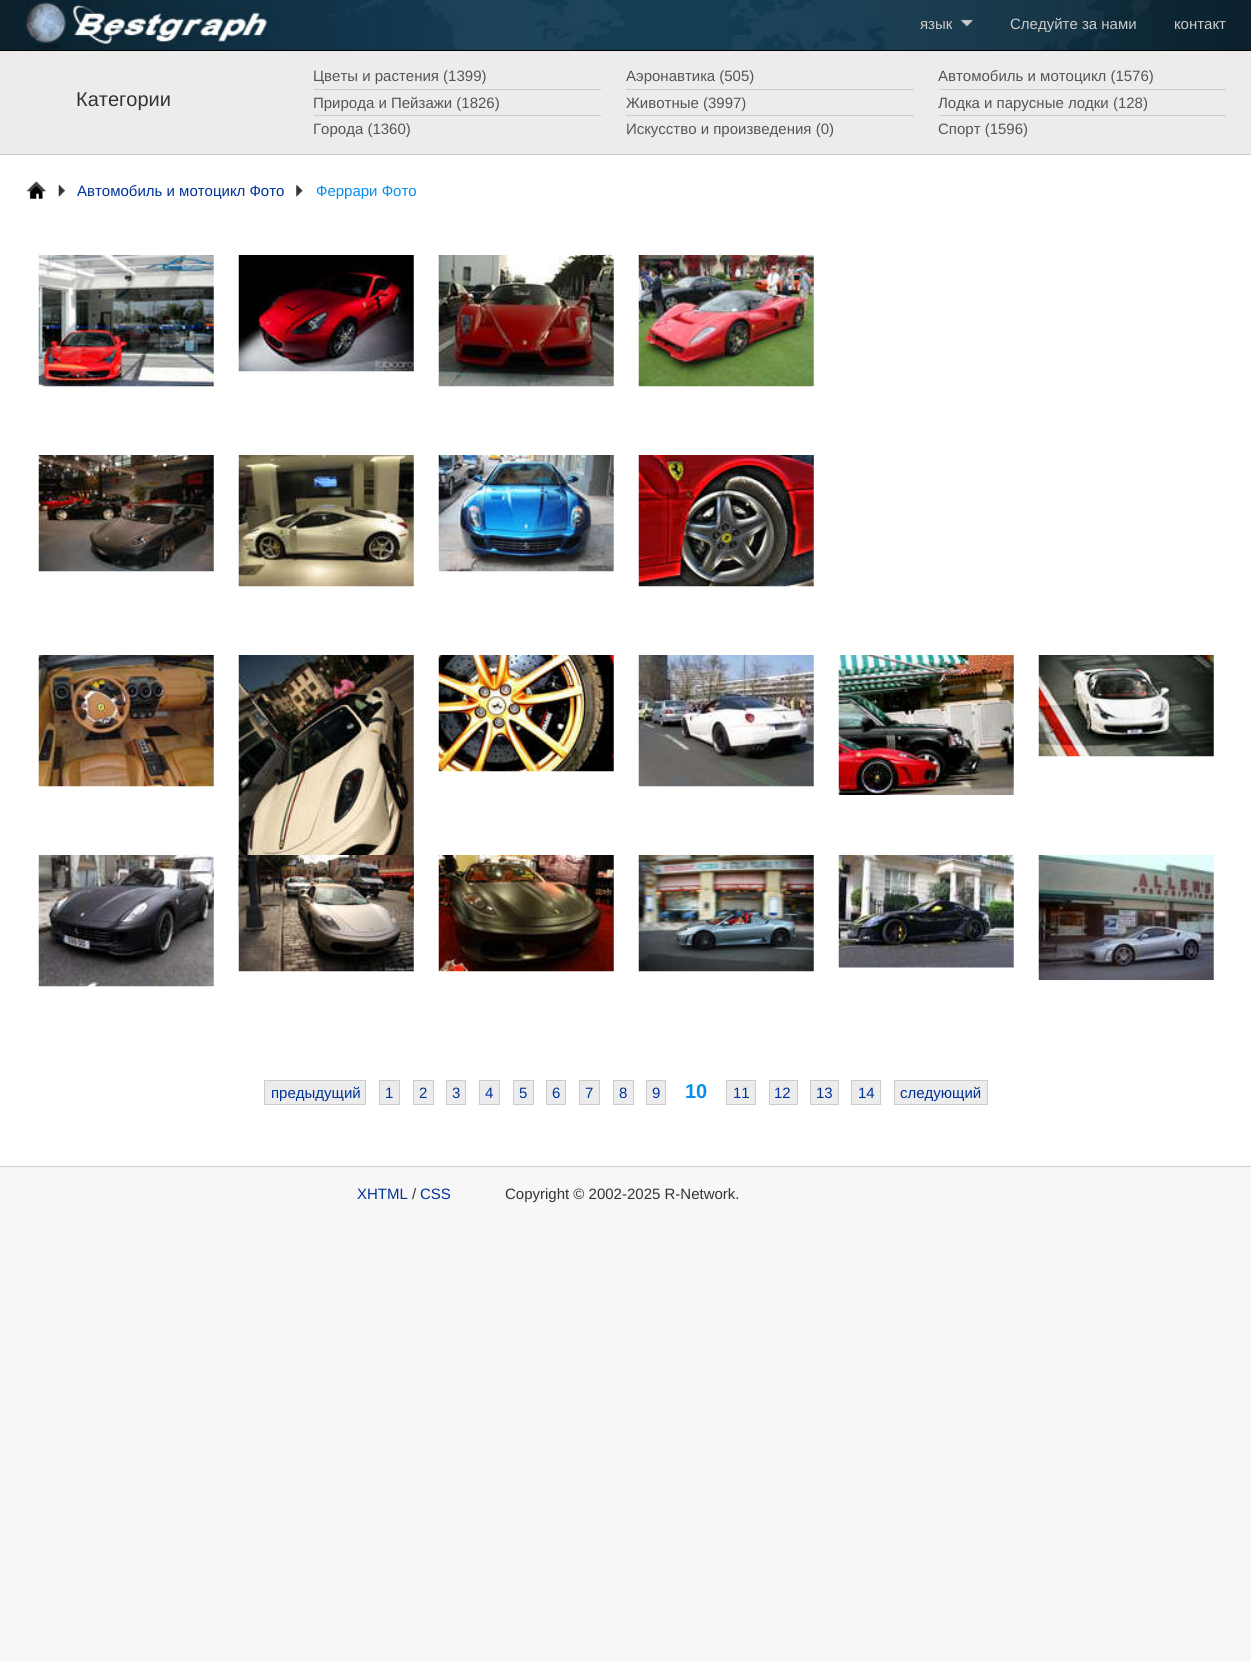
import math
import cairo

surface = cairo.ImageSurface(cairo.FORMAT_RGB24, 1251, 1662)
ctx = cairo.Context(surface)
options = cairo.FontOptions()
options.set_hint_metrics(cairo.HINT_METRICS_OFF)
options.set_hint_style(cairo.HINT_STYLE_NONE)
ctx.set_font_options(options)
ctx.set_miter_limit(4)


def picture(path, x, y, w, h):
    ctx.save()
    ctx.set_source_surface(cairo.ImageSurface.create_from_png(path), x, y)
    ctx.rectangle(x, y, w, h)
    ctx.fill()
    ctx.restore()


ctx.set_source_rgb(0.961, 0.965, 0.961)
ctx.paint()
ctx.set_source_rgb(0, 0, 0)
ctx.rectangle(0, 50, 1251, 1)
ctx.fill()
picture("img1.png", 0, 0, 1251, 50)
ctx.select_font_face("Liberation Sans")
ctx.set_font_size(15)
ctx.set_source_rgb(0.8, 0.8, 0.8)
ctx.move_to(920, 29)
ctx.show_text("язык")
picture("img2.png", 961, 19, 12, 8)
ctx.move_to(1010, 29)
ctx.show_text("Следуйте за нами")
ctx.move_to(1174, 29)
ctx.show_text("контакт")
ctx.set_source_rgb(0.922, 0.922, 0.922)
ctx.rectangle(0, 51, 1251, 103)
ctx.fill()
ctx.set_source_rgb(0.8, 0.8, 0.8)
ctx.rectangle(0, 154, 1251, 1)
ctx.fill()
ctx.set_font_size(20)
ctx.set_source_rgb(0.2, 0.2, 0.2)
ctx.move_to(76, 106)
ctx.show_text("Категории")
ctx.set_source_rgb(0.8, 0.8, 0.8)
ctx.rectangle(314, 89, 287, 1)
ctx.fill()
ctx.set_font_size(15)
ctx.set_source_rgb(0.333, 0.333, 0.333)
ctx.move_to(313, 81)
ctx.show_text("Цветы и растения (1399)")
ctx.set_source_rgb(0.8, 0.8, 0.8)
ctx.rectangle(626, 89, 288, 1)
ctx.fill()
ctx.set_source_rgb(0.333, 0.333, 0.333)
ctx.move_to(626, 81)
ctx.show_text("Аэронавтика (505)")
ctx.set_source_rgb(0.8, 0.8, 0.8)
ctx.rectangle(939, 89, 287, 1)
ctx.fill()
ctx.set_source_rgb(0.333, 0.333, 0.333)
ctx.move_to(938, 81)
ctx.show_text("Автомобиль и мотоцикл (1576)")
ctx.set_source_rgb(0.8, 0.8, 0.8)
ctx.rectangle(314, 115, 287, 1)
ctx.fill()
ctx.set_source_rgb(0.333, 0.333, 0.333)
ctx.move_to(313, 108)
ctx.show_text("Природа и Пейзажи (1826)")
ctx.set_source_rgb(0.8, 0.8, 0.8)
ctx.rectangle(626, 115, 288, 1)
ctx.fill()
ctx.set_source_rgb(0.333, 0.333, 0.333)
ctx.move_to(626, 108)
ctx.show_text("Животные (3997)")
ctx.set_source_rgb(0.8, 0.8, 0.8)
ctx.rectangle(939, 115, 287, 1)
ctx.fill()
ctx.set_source_rgb(0.333, 0.333, 0.333)
ctx.move_to(938, 108)
ctx.show_text("Лодка и парусные лодки (128)")
ctx.move_to(313, 134)
ctx.show_text("Города (1360)")
ctx.move_to(626, 134)
ctx.show_text("Искусство и произведения (0)")
ctx.move_to(938, 134)
ctx.show_text("Спорт (1596)")
ctx.set_source_rgb(1, 1, 1)
ctx.rectangle(0, 155, 1251, 1011)
ctx.fill()
picture("img3.png", 26, 181, 21, 18)
picture("img4.png", 58, 184, 7, 13)
ctx.set_source_rgb(0, 0.2, 0.6)
ctx.move_to(77, 196)
ctx.show_text("Автомобиль и мотоцикл Фото")
picture("img5.png", 296, 184, 7, 13)
ctx.set_source_rgb(0.031, 0.557, 0.933)
ctx.move_to(316, 196)
ctx.show_text("Феррари Фото")
picture("img6.png", 38, 255, 176, 132)
picture("img7.png", 238, 255, 176, 117)
picture("img8.png", 438, 255, 176, 132)
picture("img9.png", 638, 255, 176, 132)
picture("img10.png", 38, 455, 176, 117)
picture("img11.png", 238, 455, 176, 132)
picture("img12.png", 438, 455, 176, 117)
picture("img13.png", 638, 455, 176, 132)
picture("img14.png", 38, 655, 176, 132)
picture("img15.png", 238, 655, 176, 263)
picture("img16.png", 438, 655, 176, 117)
picture("img17.png", 638, 655, 176, 132)
picture("img18.png", 838, 655, 176, 140)
picture("img19.png", 1038, 655, 176, 102)
picture("img20.png", 38, 855, 176, 132)
picture("img21.png", 238, 855, 176, 117)
picture("img22.png", 438, 855, 176, 117)
picture("img23.png", 638, 855, 176, 117)
picture("img24.png", 838, 855, 176, 113)
picture("img25.png", 1038, 855, 176, 125)
ctx.set_source_rgb(0.922, 0.922, 0.922)
ctx.rectangle(264.5, 1080.5, 101, 24)
ctx.fill_preserve()
ctx.set_source_rgb(0.8, 0.8, 0.8)
ctx.set_line_width(1)
ctx.stroke()
ctx.set_source_rgb(0, 0.2, 0.6)
ctx.move_to(271, 1098)
ctx.show_text("предыдущий")
ctx.set_source_rgb(0.922, 0.922, 0.922)
ctx.rectangle(379.5, 1080.5, 20, 24)
ctx.fill_preserve()
ctx.set_source_rgb(0.8, 0.8, 0.8)
ctx.stroke()
ctx.set_source_rgb(0, 0.2, 0.6)
ctx.move_to(385, 1098)
ctx.show_text("1")
ctx.set_source_rgb(0.922, 0.922, 0.922)
ctx.rectangle(413.5, 1080.5, 20, 24)
ctx.fill_preserve()
ctx.set_source_rgb(0.8, 0.8, 0.8)
ctx.stroke()
ctx.set_source_rgb(0, 0.2, 0.6)
ctx.move_to(419, 1098)
ctx.show_text("2")
ctx.set_source_rgb(0.922, 0.922, 0.922)
ctx.rectangle(446.5, 1080.5, 19, 24)
ctx.fill_preserve()
ctx.set_source_rgb(0.8, 0.8, 0.8)
ctx.stroke()
ctx.set_source_rgb(0, 0.2, 0.6)
ctx.move_to(452, 1098)
ctx.show_text("3")
ctx.set_source_rgb(0.922, 0.922, 0.922)
ctx.rectangle(479.5, 1080.5, 20, 24)
ctx.fill_preserve()
ctx.set_source_rgb(0.8, 0.8, 0.8)
ctx.stroke()
ctx.set_source_rgb(0, 0.2, 0.6)
ctx.move_to(485, 1098)
ctx.show_text("4")
ctx.set_source_rgb(0.922, 0.922, 0.922)
ctx.rectangle(513.5, 1080.5, 20, 24)
ctx.fill_preserve()
ctx.set_source_rgb(0.8, 0.8, 0.8)
ctx.stroke()
ctx.set_source_rgb(0, 0.2, 0.6)
ctx.move_to(519, 1098)
ctx.show_text("5")
ctx.set_source_rgb(0.922, 0.922, 0.922)
ctx.rectangle(546.5, 1080.5, 19, 24)
ctx.fill_preserve()
ctx.set_source_rgb(0.8, 0.8, 0.8)
ctx.stroke()
ctx.set_source_rgb(0, 0.2, 0.6)
ctx.move_to(552, 1098)
ctx.show_text("6")
ctx.set_source_rgb(0.922, 0.922, 0.922)
ctx.rectangle(579.5, 1080.5, 20, 24)
ctx.fill_preserve()
ctx.set_source_rgb(0.8, 0.8, 0.8)
ctx.stroke()
ctx.set_source_rgb(0, 0.2, 0.6)
ctx.move_to(585, 1098)
ctx.show_text("7")
ctx.set_source_rgb(0.922, 0.922, 0.922)
ctx.rectangle(613.5, 1080.5, 20, 24)
ctx.fill_preserve()
ctx.set_source_rgb(0.8, 0.8, 0.8)
ctx.stroke()
ctx.set_source_rgb(0, 0.2, 0.6)
ctx.move_to(619, 1098)
ctx.show_text("8")
ctx.set_source_rgb(0.922, 0.922, 0.922)
ctx.rectangle(646.5, 1080.5, 19, 24)
ctx.fill_preserve()
ctx.set_source_rgb(0.8, 0.8, 0.8)
ctx.stroke()
ctx.set_source_rgb(0, 0.2, 0.6)
ctx.move_to(652, 1098)
ctx.show_text("9")
ctx.select_font_face("Liberation Sans", cairo.FONT_SLANT_NORMAL, cairo.FONT_WEIGHT_BOLD)
ctx.set_font_size(20)
ctx.set_source_rgb(0.031, 0.557, 0.933)
ctx.move_to(685, 1098)
ctx.show_text("10")
ctx.set_source_rgb(0.922, 0.922, 0.922)
ctx.rectangle(726.5, 1080.5, 29, 24)
ctx.fill_preserve()
ctx.set_source_rgb(0.8, 0.8, 0.8)
ctx.stroke()
ctx.select_font_face("Liberation Sans")
ctx.set_font_size(15)
ctx.set_source_rgb(0, 0.2, 0.6)
ctx.move_to(733, 1098)
ctx.show_text("11")
ctx.set_source_rgb(0.922, 0.922, 0.922)
ctx.rectangle(769.5, 1080.5, 28, 24)
ctx.fill_preserve()
ctx.set_source_rgb(0.8, 0.8, 0.8)
ctx.stroke()
ctx.set_source_rgb(0, 0.2, 0.6)
ctx.move_to(774, 1098)
ctx.show_text("12")
ctx.set_source_rgb(0.922, 0.922, 0.922)
ctx.rectangle(810.5, 1080.5, 28, 24)
ctx.fill_preserve()
ctx.set_source_rgb(0.8, 0.8, 0.8)
ctx.stroke()
ctx.set_source_rgb(0, 0.2, 0.6)
ctx.move_to(816, 1098)
ctx.show_text("13")
ctx.set_source_rgb(0.922, 0.922, 0.922)
ctx.rectangle(851.5, 1080.5, 29, 24)
ctx.fill_preserve()
ctx.set_source_rgb(0.8, 0.8, 0.8)
ctx.stroke()
ctx.set_source_rgb(0, 0.2, 0.6)
ctx.move_to(858, 1098)
ctx.show_text("14")
ctx.set_source_rgb(0.922, 0.922, 0.922)
ctx.rectangle(894.5, 1080.5, 93, 24)
ctx.fill_preserve()
ctx.set_source_rgb(0.8, 0.8, 0.8)
ctx.stroke()
ctx.set_source_rgb(0, 0.2, 0.6)
ctx.move_to(900, 1098)
ctx.show_text("следующий")
ctx.set_source_rgb(0.8, 0.8, 0.8)
ctx.rectangle(0, 1166, 1251, 1)
ctx.fill()
ctx.set_source_rgb(0, 0.2, 0.6)
ctx.move_to(357, 1199)
ctx.show_text("XHTML")
ctx.set_source_rgb(0.2, 0.2, 0.2)
ctx.move_to(412, 1199)
ctx.show_text("/")
ctx.set_source_rgb(0, 0.2, 0.6)
ctx.move_to(420, 1199)
ctx.show_text("CSS")
ctx.set_source_rgb(0.2, 0.2, 0.2)
ctx.move_to(505, 1199)
ctx.show_text("Copyright © 2002-2025 R-Network.")
surface.write_to_png("page.png")
